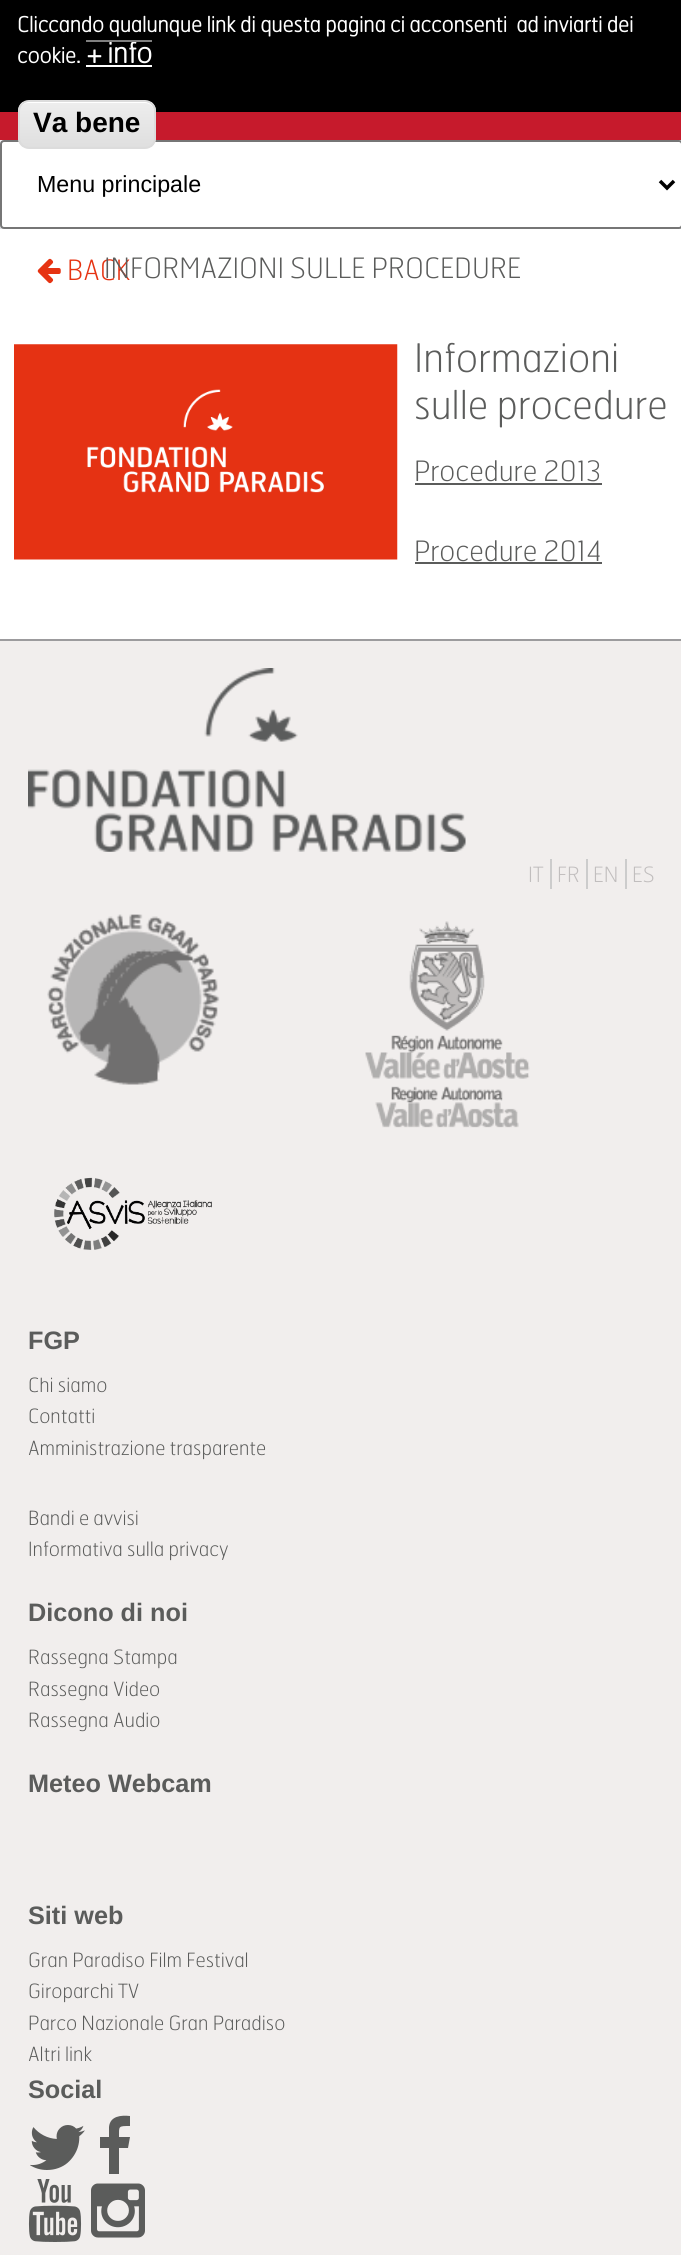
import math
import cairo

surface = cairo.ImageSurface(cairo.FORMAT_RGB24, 681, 2255)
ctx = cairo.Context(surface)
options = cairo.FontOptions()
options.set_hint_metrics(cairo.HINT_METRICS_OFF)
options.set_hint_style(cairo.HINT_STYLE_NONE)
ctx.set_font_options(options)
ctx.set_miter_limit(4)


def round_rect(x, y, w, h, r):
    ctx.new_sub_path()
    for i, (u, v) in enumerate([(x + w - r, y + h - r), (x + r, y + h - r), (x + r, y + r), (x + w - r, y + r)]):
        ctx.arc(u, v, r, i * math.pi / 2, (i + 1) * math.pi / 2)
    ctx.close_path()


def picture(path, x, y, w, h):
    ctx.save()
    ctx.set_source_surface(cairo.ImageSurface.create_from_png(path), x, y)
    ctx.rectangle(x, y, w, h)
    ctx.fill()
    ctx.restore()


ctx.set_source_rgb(1, 1, 1)
ctx.paint()
ctx.set_source_rgb(0, 0, 0)
ctx.rectangle(0, 0, 681, 112)
ctx.fill()
ctx.select_font_face("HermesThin", cairo.FONT_SLANT_NORMAL, cairo.FONT_WEIGHT_BOLD)
ctx.set_font_size(21)
ctx.set_source_rgb(1, 1, 1)
ctx.move_to(17, 32)
ctx.show_text("Cliccando qualunque link di questa pagina ci acconsenti  ad inviarti dei")
ctx.move_to(17, 63)
ctx.show_text("cookie.")
ctx.set_font_size(28)
ctx.move_to(87, 63)
ctx.show_text("+ info")
ctx.set_source_rgb(0.502, 0.502, 0.502)
ctx.rectangle(86, 40, 66, 2)
ctx.fill()
ctx.set_source_rgb(1, 1, 1)
ctx.rectangle(86, 65, 66, 2)
ctx.fill()
gradient = cairo.LinearGradient(341, 140, 341, -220)
gradient.add_color_stop_rgba(0.06, 0.776, 0.102, 0.173, 1)
gradient.add_color_stop_rgba(0.99, 0.902, 0.2, 0.071, 1)
ctx.set_source(gradient)
ctx.rectangle(0, 112, 681, 28)
ctx.fill()
gradient = cairo.LinearGradient(341, 140, 341, 229)
gradient.add_color_stop_rgba(0, 0.961, 0.965, 0.976, 1)
gradient.add_color_stop_rgba(1, 0.867, 0.875, 0.89, 1)
ctx.set_source(gradient)
ctx.rectangle(0, 140, 681, 89)
ctx.fill()
ctx.set_source_rgb(1, 1, 1)
round_rect(1, 141, 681, 87, 3)
ctx.fill_preserve()
ctx.set_source_rgb(0.463, 0.463, 0.463)
ctx.stroke()
ctx.save()
round_rect(18, 100, 138, 49, 11)
ctx.clip()
gradient = cairo.LinearGradient(87, 101, 87, 147)
gradient.add_color_stop_rgba(0.05, 0.929, 0.929, 0.929, 1)
gradient.add_color_stop_rgba(1, 0.875, 0.875, 0.875, 1)
ctx.set_source(gradient)
ctx.rectangle(18, 102, 138, 45)
ctx.fill()
ctx.restore()
ctx.set_source_rgb(1, 1, 1)
ctx.new_path()
ctx.move_to(28, 103)
ctx.line_to(145, 103)
ctx.curve_to(150, 103, 154, 107, 154, 112)
ctx.curve_to(154, 97, 134, 102, 126, 102)
ctx.line_to(48, 102)
ctx.curve_to(39, 102, 19, 97, 19, 112)
ctx.curve_to(19, 107, 23, 103, 28, 103)
ctx.close_path()
ctx.fill()
round_rect(19, 101, 136, 47, 10)
ctx.set_source_rgb(0.863, 0.863, 0.863)
ctx.stroke()
ctx.select_font_face("Liberation Sans", cairo.FONT_SLANT_NORMAL, cairo.FONT_WEIGHT_BOLD)
ctx.set_source_rgb(0, 0, 0)
ctx.move_to(33, 132)
ctx.show_text("Va bene")
ctx.new_path()
ctx.move_to(660, 181)
ctx.line_to(667, 188)
ctx.line_to(674, 181)
ctx.set_line_width(3.5)
ctx.stroke()
ctx.select_font_face("Liberation Sans")
ctx.set_font_size(23.25)
ctx.move_to(37, 192)
ctx.show_text("Menu principale")
picture("img1.png", 37, 258, 24, 26)
ctx.select_font_face("HermesThin Thin")
ctx.set_font_size(28)
ctx.set_source_rgb(0.902, 0.2, 0.071)
ctx.move_to(67, 280)
ctx.show_text("BACK")
ctx.set_source_rgb(0.357, 0.361, 0.357)
ctx.move_to(104, 278)
ctx.show_text("INFORMAZIONI SULLE PROCEDURE")
picture("img2.png", 14, 344, 384, 216)
ctx.set_font_size(39.25)
ctx.move_to(414, 372)
ctx.show_text("Informazioni")
ctx.move_to(414, 419)
ctx.show_text("sulle procedure")
ctx.set_font_size(28)
ctx.move_to(414, 481)
ctx.show_text("Procedure 2013")
ctx.rectangle(415, 483, 187, 2)
ctx.fill()
ctx.move_to(414, 561)
ctx.show_text("Procedure 2014")
ctx.rectangle(415, 562, 187, 2)
ctx.fill()
ctx.set_source_rgb(0.945, 0.933, 0.929)
ctx.rectangle(0, 641, 681, 1614)
ctx.fill()
ctx.set_source_rgb(0.612, 0.608, 0.616)
ctx.rectangle(0, 639, 681, 2)
ctx.fill()
picture("img3.png", 28, 668, 438, 184)
ctx.set_font_size(21)
ctx.set_source_rgb(0.757, 0.745, 0.745)
ctx.move_to(528, 882)
ctx.show_text("IT")
ctx.set_source_rgb(0.8, 0.8, 0.8)
ctx.rectangle(550, 859, 2, 30)
ctx.fill()
ctx.set_source_rgb(0.757, 0.745, 0.745)
ctx.move_to(557, 882)
ctx.show_text("FR")
ctx.set_source_rgb(0.8, 0.8, 0.8)
ctx.rectangle(586, 859, 2, 30)
ctx.fill()
ctx.set_source_rgb(0.757, 0.745, 0.745)
ctx.move_to(593, 882)
ctx.show_text("EN")
ctx.set_source_rgb(0.8, 0.8, 0.8)
ctx.rectangle(625, 859, 2, 30)
ctx.fill()
ctx.set_source_rgb(0.757, 0.745, 0.745)
ctx.move_to(632, 882)
ctx.show_text("ES")
picture("img4.png", 47, 914, 173, 171)
picture("img5.png", 365, 921, 165, 207)
picture("img6.png", 54, 1177, 158, 73)
ctx.select_font_face("Liberation Sans", cairo.FONT_SLANT_NORMAL, cairo.FONT_WEIGHT_BOLD)
ctx.set_font_size(25.25)
ctx.set_source_rgb(0.357, 0.361, 0.357)
ctx.move_to(28, 1349)
ctx.show_text("FGP")
ctx.select_font_face("HermesThin Thin")
ctx.set_font_size(19.6)
ctx.move_to(28, 1392)
ctx.show_text("Chi siamo")
ctx.move_to(28, 1423)
ctx.show_text("Contatti")
ctx.move_to(28, 1455)
ctx.show_text("Amministrazione trasparente")
ctx.move_to(28, 1525)
ctx.show_text("Bandi e avvisi")
ctx.move_to(28, 1556)
ctx.show_text("Informativa sulla privacy")
ctx.select_font_face("Liberation Sans", cairo.FONT_SLANT_NORMAL, cairo.FONT_WEIGHT_BOLD)
ctx.set_font_size(25.25)
ctx.move_to(28, 1621)
ctx.show_text("Dicono di noi")
ctx.select_font_face("HermesThin Thin")
ctx.set_font_size(19.6)
ctx.move_to(28, 1664)
ctx.show_text("Rassegna Stampa")
ctx.move_to(28, 1696)
ctx.show_text("Rassegna Video")
ctx.move_to(28, 1727)
ctx.show_text("Rassegna Audio")
ctx.select_font_face("Liberation Sans", cairo.FONT_SLANT_NORMAL, cairo.FONT_WEIGHT_BOLD)
ctx.set_font_size(25.25)
ctx.move_to(28, 1792)
ctx.show_text("Meteo Webcam")
ctx.move_to(28, 1924)
ctx.show_text("Siti web")
ctx.select_font_face("HermesThin Thin")
ctx.set_font_size(19.6)
ctx.move_to(28, 1967)
ctx.show_text("Gran Paradiso Film Festival")
ctx.move_to(28, 1998)
ctx.show_text("Giroparchi TV")
ctx.move_to(28, 2030)
ctx.show_text("Parco Nazionale Gran Paradiso")
ctx.move_to(28, 2061)
ctx.show_text("Altri link")
ctx.select_font_face("Liberation Sans", cairo.FONT_SLANT_NORMAL, cairo.FONT_WEIGHT_BOLD)
ctx.set_font_size(25.25)
ctx.move_to(28, 2098)
ctx.show_text("Social")
picture("img7.png", 30, 2125, 55, 45)
ctx.new_path()
ctx.move_to(130, 2116)
ctx.line_to(130, 2126)
ctx.curve_to(118, 2126, 119, 2126, 119, 2137)
ctx.line_to(130, 2137)
ctx.line_to(128, 2148)
ctx.line_to(119, 2148)
ctx.line_to(119, 2174)
ctx.line_to(109, 2174)
ctx.line_to(109, 2148)
ctx.line_to(100, 2148)
ctx.line_to(100, 2137)
ctx.line_to(109, 2137)
ctx.line_to(109, 2127)
ctx.curve_to(110, 2116, 121, 2115, 130, 2116)
ctx.close_path()
ctx.fill()
picture("img8.png", 28, 2179, 54, 63)
picture("img9.png", 91, 2183, 54, 55)
surface.write_to_png("page.png")
